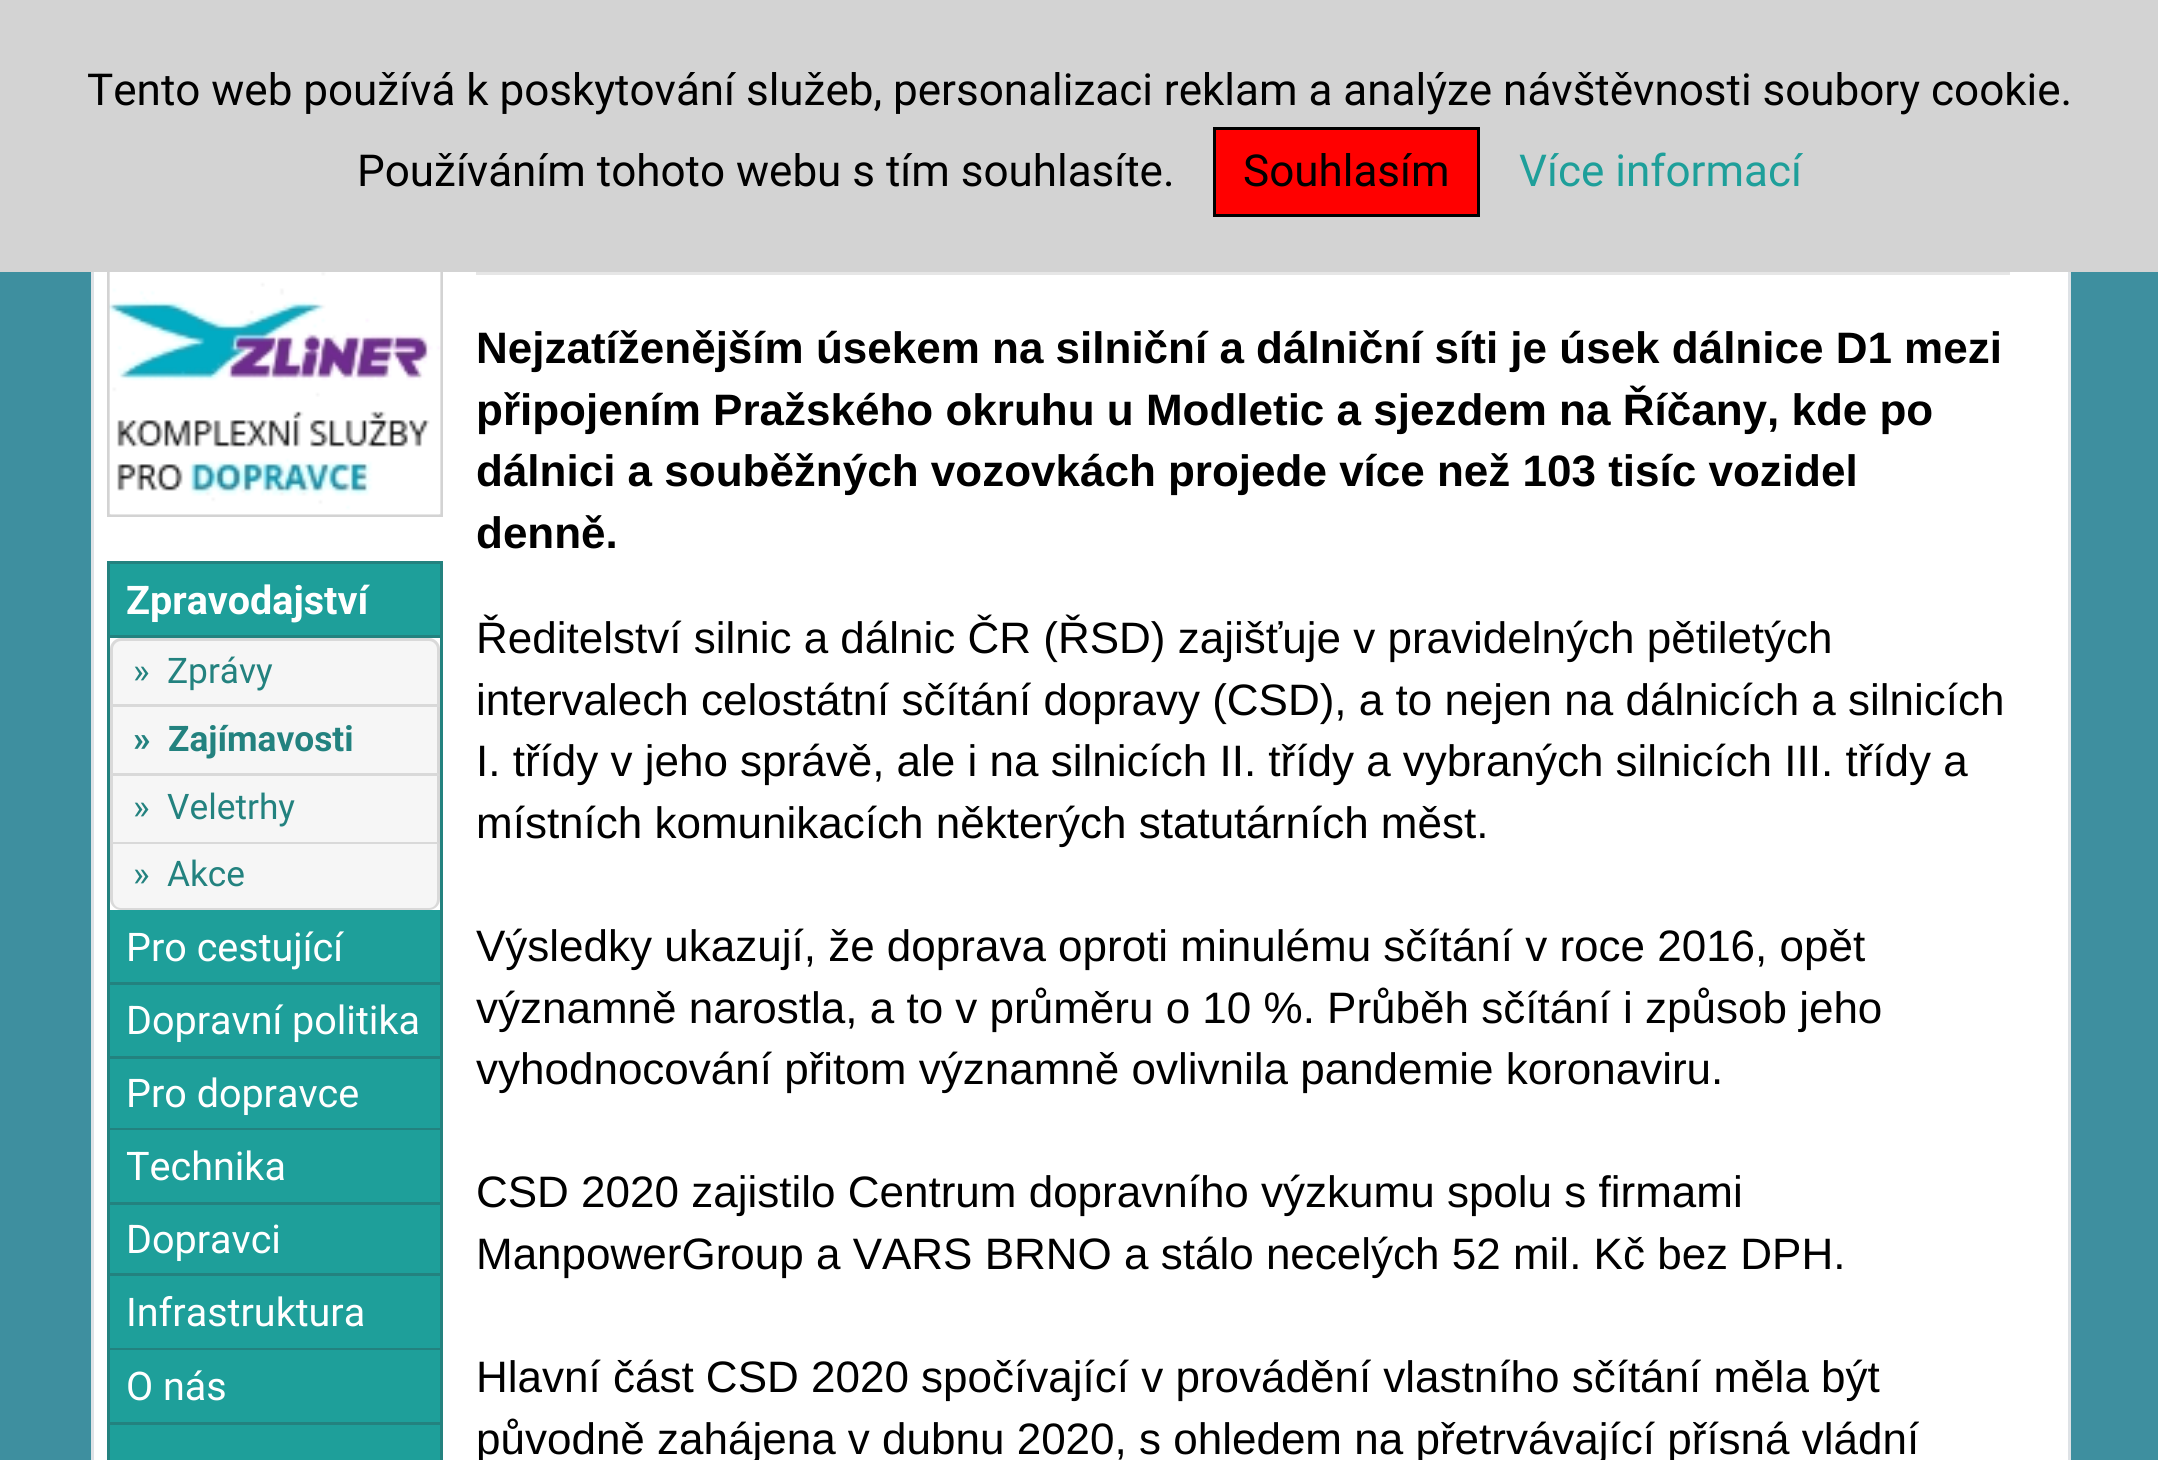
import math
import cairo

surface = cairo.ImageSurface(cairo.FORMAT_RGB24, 2158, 1460)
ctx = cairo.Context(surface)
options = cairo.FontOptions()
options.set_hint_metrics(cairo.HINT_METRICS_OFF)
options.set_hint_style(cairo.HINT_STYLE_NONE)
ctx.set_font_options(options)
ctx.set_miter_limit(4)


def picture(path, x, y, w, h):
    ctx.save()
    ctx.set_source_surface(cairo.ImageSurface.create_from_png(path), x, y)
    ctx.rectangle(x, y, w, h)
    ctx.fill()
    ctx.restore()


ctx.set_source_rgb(0.243, 0.561, 0.624)
ctx.paint()
ctx.set_source_rgb(1, 1, 1)
ctx.rectangle(94, 272, 1974, 1188)
ctx.fill()
ctx.rectangle(92.5, -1.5, 1977, 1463)
ctx.set_source_rgb(0.871, 0.886, 0.902)
ctx.set_line_width(3)
ctx.stroke()
ctx.rectangle(108.5, 265.5, 333, 250)
ctx.set_source_rgb(0.827, 0.827, 0.827)
ctx.stroke()
ctx.rectangle(0, 0, 2158, 272)
ctx.fill()
ctx.select_font_face("Roboto")
ctx.set_font_size(44)
ctx.set_source_rgb(0, 0, 0)
ctx.move_to(87, 105)
ctx.show_text("Tento web používá k poskytování služeb, personalizaci reklam a analýze návštěvnosti soubory cookie.")
ctx.move_to(357, 186)
ctx.show_text("Používáním tohoto webu s tím souhlasíte.")
ctx.set_source_rgb(1, 0, 0)
ctx.rectangle(1214.5, 128.5, 264, 87)
ctx.fill_preserve()
ctx.set_source_rgb(0, 0, 0)
ctx.stroke()
ctx.move_to(1243, 186)
ctx.show_text("Souhlasím")
ctx.set_source_rgb(0.118, 0.624, 0.604)
ctx.move_to(1519, 186)
ctx.show_text("Více informací")
picture("img1.png", 109, 272, 332, 243)
ctx.rectangle(108.5, 562.5, 333, 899)
ctx.set_source_rgb(0.137, 0.51, 0.498)
ctx.stroke()
ctx.set_source_rgb(0.118, 0.624, 0.604)
ctx.rectangle(110, 564, 330, 71)
ctx.fill()
ctx.set_source_rgb(0.137, 0.51, 0.498)
ctx.rectangle(110, 635, 330, 3)
ctx.fill()
ctx.select_font_face("Roboto", cairo.FONT_SLANT_NORMAL, cairo.FONT_WEIGHT_BOLD)
ctx.set_font_size(39.5)
ctx.set_source_rgb(1, 1, 1)
ctx.move_to(126, 614)
ctx.show_text("Zpravodajství")
ctx.set_source_rgb(0.961, 0.961, 0.961)
ctx.new_path()
ctx.move_to(121, 638)
ctx.line_to(429, 638)
ctx.curve_to(435, 638, 440, 643, 440, 649)
ctx.line_to(440, 707)
ctx.line_to(110, 707)
ctx.line_to(110, 649)
ctx.curve_to(110, 643, 115, 638, 121, 638)
ctx.close_path()
ctx.fill()
ctx.new_path()
ctx.move_to(121, 639.5)
ctx.line_to(429, 639.5)
ctx.curve_to(434, 639.5, 438.5, 644, 438.5, 649)
ctx.line_to(438.5, 705.5)
ctx.line_to(111.5, 705.5)
ctx.line_to(111.5, 649)
ctx.curve_to(111.5, 644, 116, 639.5, 121, 639.5)
ctx.close_path()
ctx.set_source_rgba(0, 0, 0, 0.12)
ctx.stroke()
ctx.select_font_face("Roboto")
ctx.set_font_size(35.25)
ctx.set_source_rgb(0.137, 0.51, 0.498)
ctx.move_to(133, 683)
ctx.show_text("»")
ctx.move_to(167, 683)
ctx.show_text("Zprávy")
ctx.set_source_rgb(0.961, 0.961, 0.961)
ctx.rectangle(110, 707, 330, 137)
ctx.fill()
ctx.set_source_rgb(0.839, 0.839, 0.839)
ctx.new_path()
ctx.move_to(440, 707)
ctx.line_to(440, 776)
ctx.line_to(437, 773)
ctx.line_to(437, 707)
ctx.close_path()
ctx.fill()
ctx.set_source_rgba(0, 0, 0, 0.12)
ctx.new_path()
ctx.move_to(440, 776)
ctx.line_to(110, 776)
ctx.line_to(113, 773)
ctx.line_to(437, 773)
ctx.close_path()
ctx.fill()
ctx.new_path()
ctx.move_to(110, 776)
ctx.line_to(110, 707)
ctx.line_to(113, 707)
ctx.line_to(113, 773)
ctx.close_path()
ctx.fill()
ctx.select_font_face("Roboto", cairo.FONT_SLANT_NORMAL, cairo.FONT_WEIGHT_BOLD)
ctx.set_source_rgb(0.137, 0.51, 0.498)
ctx.move_to(133, 751)
ctx.show_text("»")
ctx.move_to(168, 751)
ctx.show_text("Zajímavosti")
ctx.set_source_rgb(0.839, 0.839, 0.839)
ctx.new_path()
ctx.move_to(440, 776)
ctx.line_to(440, 844)
ctx.line_to(437, 842)
ctx.line_to(437, 776)
ctx.close_path()
ctx.fill()
ctx.set_source_rgba(0, 0, 0, 0.12)
ctx.new_path()
ctx.move_to(440, 844)
ctx.line_to(110, 844)
ctx.line_to(113, 842)
ctx.line_to(437, 842)
ctx.close_path()
ctx.fill()
ctx.new_path()
ctx.move_to(110, 844)
ctx.line_to(110, 776)
ctx.line_to(113, 776)
ctx.line_to(113, 842)
ctx.close_path()
ctx.fill()
ctx.select_font_face("Roboto")
ctx.set_source_rgb(0.137, 0.51, 0.498)
ctx.move_to(133, 819)
ctx.show_text("»")
ctx.move_to(167, 819)
ctx.show_text("Veletrhy")
ctx.set_source_rgb(0.961, 0.961, 0.961)
ctx.new_path()
ctx.move_to(110, 844)
ctx.line_to(440, 844)
ctx.line_to(440, 899)
ctx.curve_to(440, 905, 435, 910, 429, 910)
ctx.line_to(121, 910)
ctx.curve_to(115, 910, 110, 905, 110, 899)
ctx.close_path()
ctx.fill()
ctx.set_source_rgba(0, 0, 0, 0.12)
ctx.set_fill_rule(cairo.FILL_RULE_EVEN_ODD)
ctx.new_path()
ctx.move_to(110, 844)
ctx.line_to(440, 844)
ctx.line_to(440, 899)
ctx.curve_to(440, 905, 435, 910, 429, 910)
ctx.line_to(121, 910)
ctx.curve_to(115, 910, 110, 905, 110, 899)
ctx.close_path()
ctx.move_to(113, 844)
ctx.line_to(437, 844)
ctx.line_to(437, 899)
ctx.curve_to(437, 904, 434, 908, 429, 908)
ctx.line_to(121, 908)
ctx.curve_to(116, 908, 113, 904, 113, 899)
ctx.close_path()
ctx.fill()
ctx.set_source_rgb(0.137, 0.51, 0.498)
ctx.move_to(133, 886)
ctx.show_text("»")
ctx.move_to(167, 886)
ctx.show_text("Akce")
ctx.set_source_rgb(0.118, 0.624, 0.604)
ctx.rectangle(110, 910, 330, 72)
ctx.fill()
ctx.set_source_rgb(0.137, 0.51, 0.498)
ctx.rectangle(110, 982, 330, 3)
ctx.fill()
ctx.set_font_size(39.5)
ctx.set_source_rgb(1, 1, 1)
ctx.move_to(126, 961)
ctx.show_text("Pro cestující")
ctx.set_source_rgb(0.118, 0.624, 0.604)
ctx.rectangle(110, 985, 330, 71)
ctx.fill()
ctx.set_source_rgb(0.137, 0.51, 0.498)
ctx.rectangle(110, 1056, 330, 3)
ctx.fill()
ctx.set_source_rgb(1, 1, 1)
ctx.move_to(126, 1034)
ctx.show_text("Dopravní politika")
ctx.set_source_rgb(0.118, 0.624, 0.604)
ctx.rectangle(110, 1059, 330, 69)
ctx.fill()
ctx.set_source_rgb(0.137, 0.51, 0.498)
ctx.rectangle(110, 1128, 330, 2)
ctx.fill()
ctx.set_source_rgb(1, 1, 1)
ctx.move_to(126, 1107)
ctx.show_text("Pro dopravce")
ctx.set_source_rgb(0.118, 0.624, 0.604)
ctx.rectangle(110, 1130, 330, 72)
ctx.fill()
ctx.set_source_rgb(0.137, 0.51, 0.498)
ctx.rectangle(110, 1202, 330, 3)
ctx.fill()
ctx.set_source_rgb(1, 1, 1)
ctx.move_to(126, 1180)
ctx.show_text("Technika")
ctx.set_source_rgb(0.118, 0.624, 0.604)
ctx.rectangle(110, 1205, 330, 68)
ctx.fill()
ctx.set_source_rgb(0.137, 0.51, 0.498)
ctx.rectangle(110, 1273, 330, 3)
ctx.fill()
ctx.set_source_rgb(1, 1, 1)
ctx.move_to(126, 1253)
ctx.show_text("Dopravci")
ctx.set_source_rgb(0.118, 0.624, 0.604)
ctx.rectangle(110, 1276, 330, 72)
ctx.fill()
ctx.set_source_rgb(0.137, 0.51, 0.498)
ctx.rectangle(110, 1348, 330, 2)
ctx.fill()
ctx.set_source_rgb(1, 1, 1)
ctx.move_to(126, 1326)
ctx.show_text("Infrastruktura")
ctx.set_source_rgb(0.118, 0.624, 0.604)
ctx.rectangle(110, 1350, 330, 72)
ctx.fill()
ctx.set_source_rgb(0.137, 0.51, 0.498)
ctx.rectangle(110, 1422, 330, 3)
ctx.fill()
ctx.set_source_rgb(1, 1, 1)
ctx.move_to(126, 1400)
ctx.show_text("O nás")
ctx.set_source_rgb(0.118, 0.624, 0.604)
ctx.rectangle(110, 1425, 330, 35)
ctx.fill()
ctx.set_source_rgb(0.902, 0.902, 0.902)
ctx.rectangle(476, 272, 1534, 3)
ctx.fill()
ctx.select_font_face("Liberation Sans", cairo.FONT_SLANT_NORMAL, cairo.FONT_WEIGHT_BOLD)
ctx.set_font_size(44)
ctx.set_source_rgb(0, 0, 0)
ctx.move_to(476, 363)
ctx.show_text("Nejzatíženějším úsekem na silniční a dálniční síti je úsek dálnice D1 mezi")
ctx.move_to(476, 425)
ctx.show_text("připojením Pražského okruhu u Modletic a sjezdem na Říčany, kde po")
ctx.move_to(476, 486)
ctx.show_text("dálnici a souběžných vozovkách projede více než 103 tisíc vozidel")
ctx.move_to(476, 548)
ctx.show_text("denně.")
ctx.select_font_face("Liberation Sans")
ctx.move_to(476, 653)
ctx.show_text("Ředitelství silnic a dálnic ČR (ŘSD) zajišťuje v pravidelných pětiletých")
ctx.move_to(476, 715)
ctx.show_text("intervalech celostátní sčítání dopravy (CSD), a to nejen na dálnicích a silnicích")
ctx.move_to(476, 776)
ctx.show_text("I. třídy v jeho správě, ale i na silnicích II. třídy a vybraných silnicích III. třídy a")
ctx.move_to(476, 838)
ctx.show_text("místních komunikacích některých statutárních měst.")
ctx.move_to(476, 961)
ctx.show_text("Výsledky ukazují, že doprava oproti minulému sčítání v roce 2016, opět")
ctx.move_to(476, 1023)
ctx.show_text("významně narostla, a to v průměru o 10 %. Průběh sčítání i způsob jeho")
ctx.move_to(476, 1084)
ctx.show_text("vyhodnocování přitom významně ovlivnila pandemie koronaviru.")
ctx.move_to(476, 1207)
ctx.show_text("CSD 2020 zajistilo Centrum dopravního výzkumu spolu s firmami")
ctx.move_to(476, 1269)
ctx.show_text("ManpowerGroup a VARS BRNO a stálo necelých 52 mil. Kč bez DPH.")
ctx.move_to(476, 1392)
ctx.show_text("Hlavní část CSD 2020 spočívající v provádění vlastního sčítání měla být")
ctx.move_to(476, 1454)
ctx.show_text("původně zahájena v dubnu 2020, s ohledem na přetrvávající přísná vládní")
surface.write_to_png("page.png")
